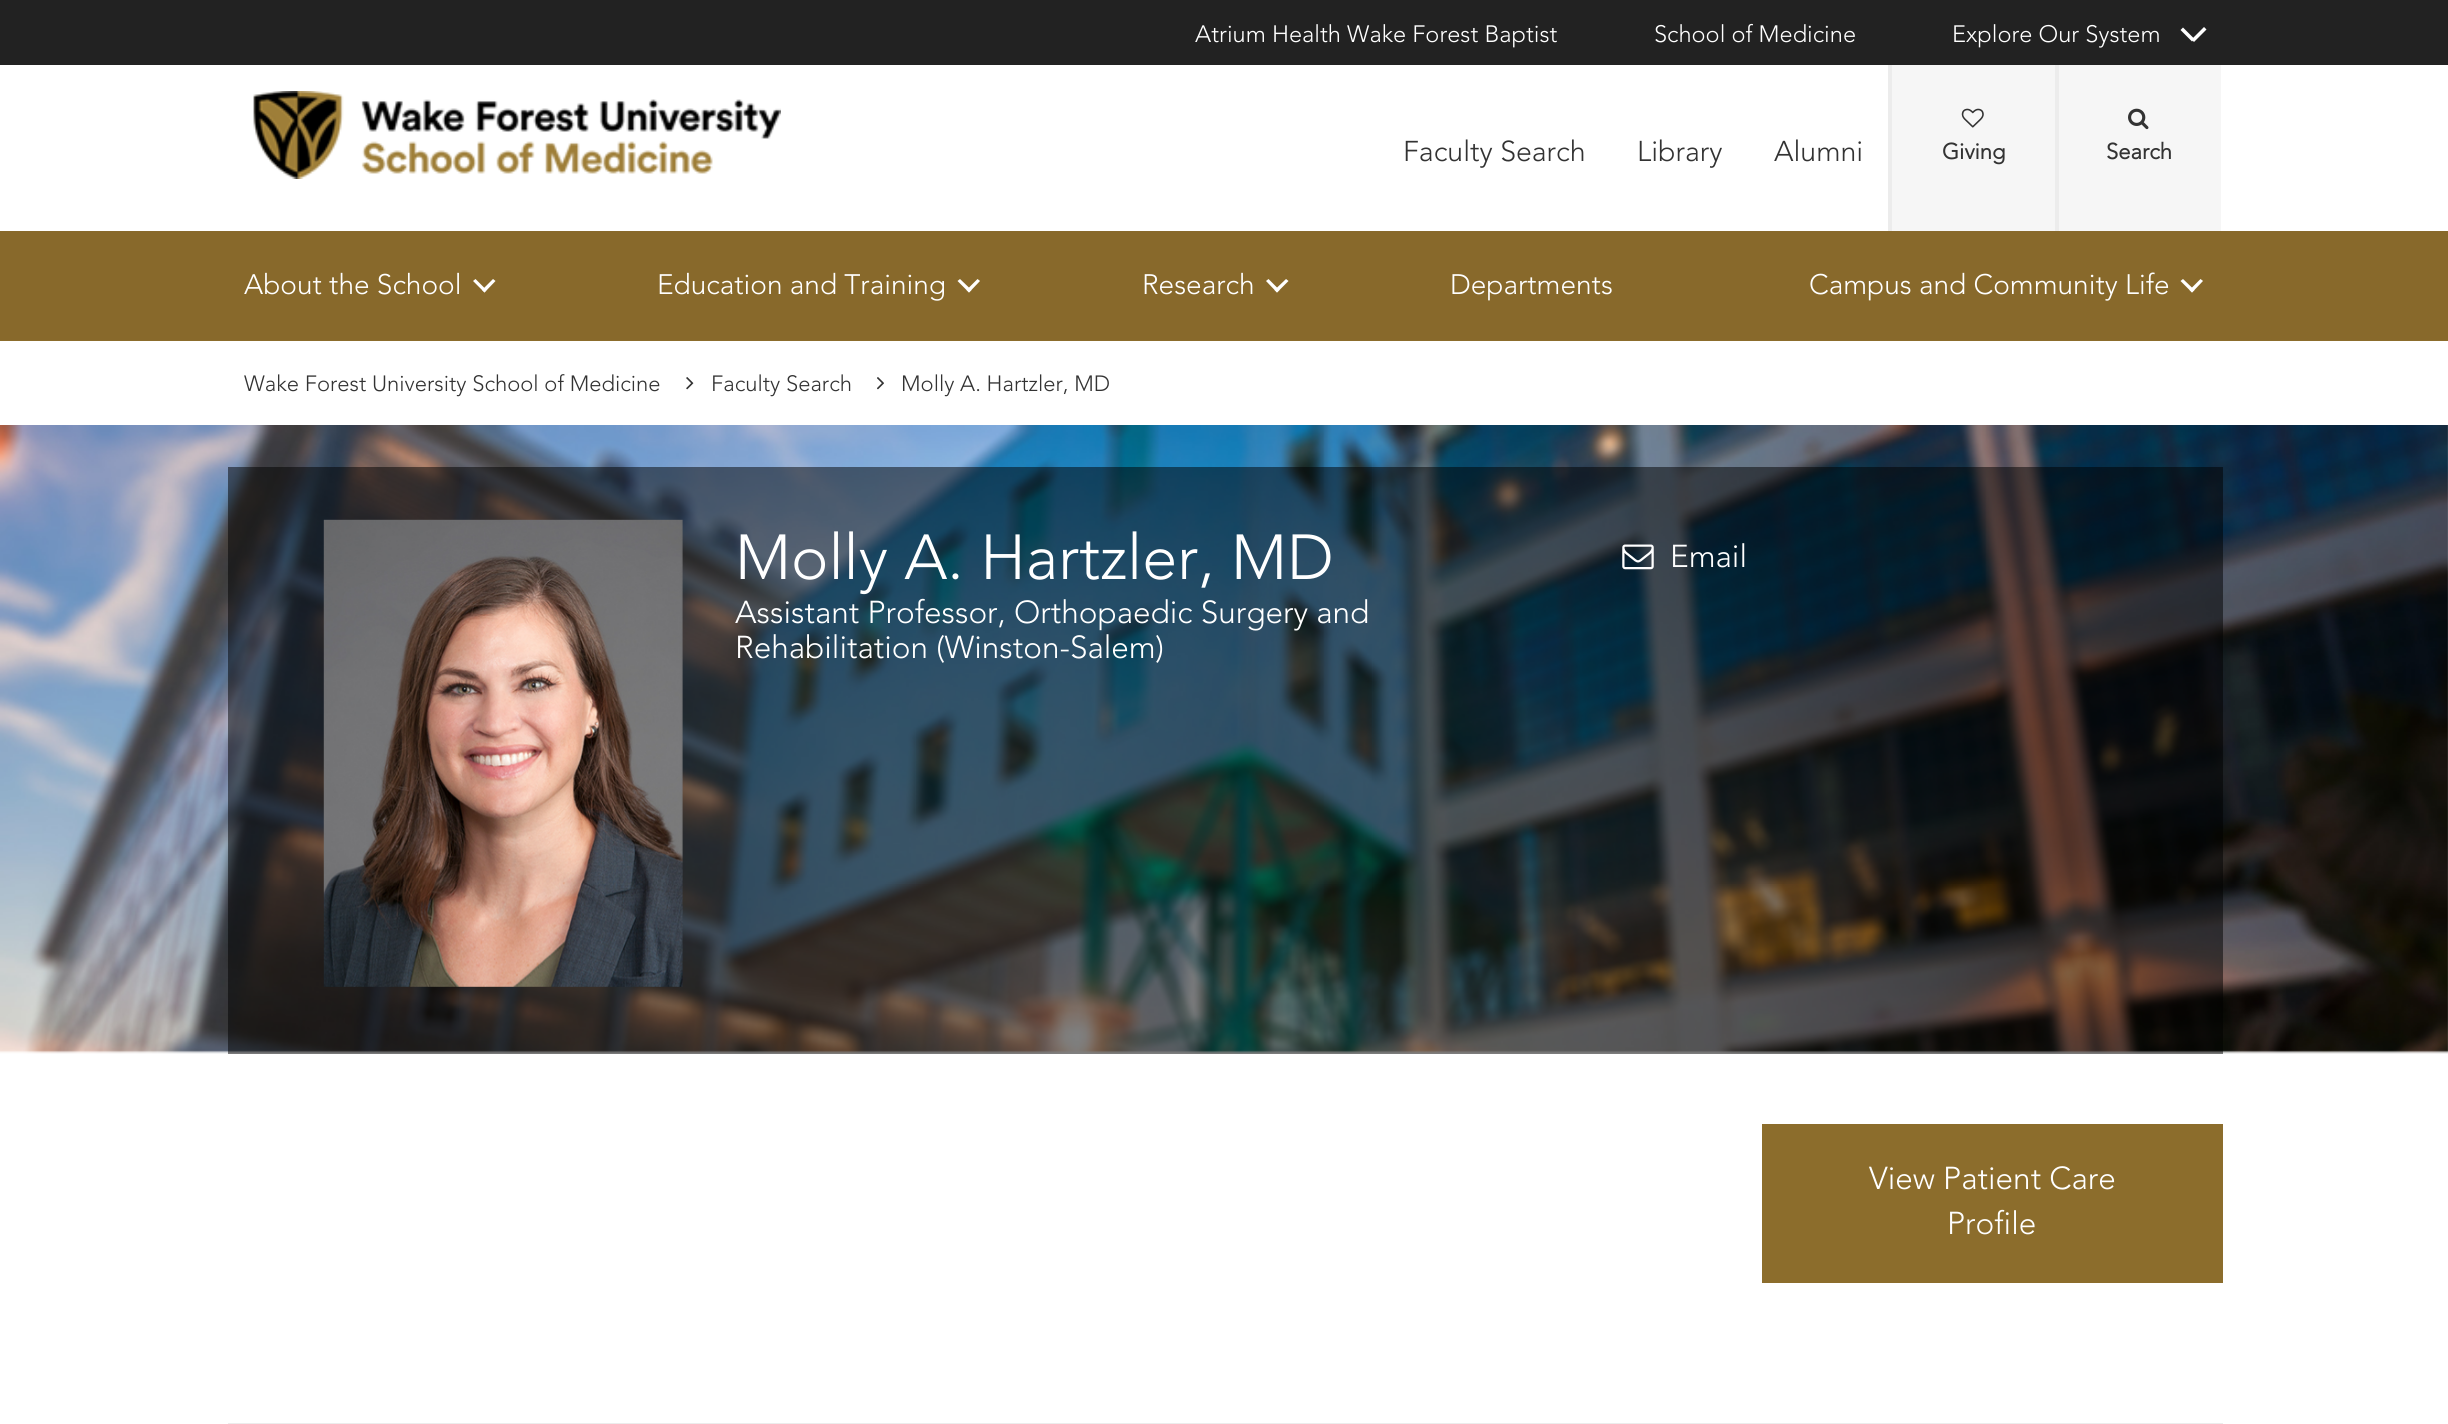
import math
import cairo

surface = cairo.ImageSurface(cairo.FORMAT_RGB24, 2448, 1424)
ctx = cairo.Context(surface)
options = cairo.FontOptions()
options.set_hint_metrics(cairo.HINT_METRICS_OFF)
options.set_hint_style(cairo.HINT_STYLE_NONE)
ctx.set_font_options(options)
ctx.set_miter_limit(4)


def picture(path, x, y, w, h):
    ctx.save()
    ctx.set_source_surface(cairo.ImageSurface.create_from_png(path), x, y)
    ctx.rectangle(x, y, w, h)
    ctx.fill()
    ctx.restore()


ctx.set_source_rgb(1, 1, 1)
ctx.paint()
ctx.set_source_rgb(0.549, 0.427, 0.173)
ctx.rectangle(0, 340, 2448, 1)
ctx.fill()
ctx.set_source_rgb(0.133, 0.133, 0.133)
ctx.rectangle(0, 0, 2448, 65)
ctx.fill()
ctx.select_font_face("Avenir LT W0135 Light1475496 Light")
ctx.set_font_size(23.6)
ctx.set_source_rgb(1, 1, 1)
ctx.move_to(1195, 42)
ctx.show_text("Atrium Health Wake Forest Baptist")
ctx.move_to(1654, 42)
ctx.show_text("School of Medicine")
ctx.move_to(1952, 42)
ctx.show_text("Explore Our System")
ctx.new_path()
ctx.move_to(2183, 27.5)
ctx.line_to(2194.5, 39)
ctx.line_to(2192, 41.5)
ctx.line_to(2180.5, 30)
ctx.close_path()
ctx.fill()
ctx.new_path()
ctx.move_to(2191.5, 39.5)
ctx.line_to(2204, 27)
ctx.line_to(2206.5, 29.5)
ctx.line_to(2194, 42)
ctx.close_path()
ctx.fill()
picture("img1.png", 253, 91, 528, 88)
ctx.set_font_size(28.5)
ctx.set_source_rgb(0.2, 0.2, 0.2)
ctx.move_to(1403, 161)
ctx.show_text("Faculty Search")
ctx.move_to(1637, 161)
ctx.show_text("Library")
ctx.move_to(1774, 161)
ctx.show_text("Alumni")
ctx.set_source_rgb(0.961, 0.961, 0.961)
ctx.rectangle(1892, 65, 163, 166)
ctx.fill()
ctx.set_source_rgb(0.922, 0.922, 0.922)
ctx.rectangle(1888, 65, 4, 166)
ctx.fill()
picture("img2.png", 1961, 108, 23, 20)
ctx.select_font_face("Avenir LT W0135 Light1475496", cairo.FONT_SLANT_NORMAL, cairo.FONT_WEIGHT_BOLD)
ctx.set_font_size(22)
ctx.set_source_rgb(0.2, 0.2, 0.2)
ctx.move_to(1942, 159)
ctx.show_text("Giving")
ctx.set_source_rgb(0.961, 0.961, 0.961)
ctx.rectangle(2059, 65, 162, 166)
ctx.fill()
ctx.set_source_rgb(0.922, 0.922, 0.922)
ctx.rectangle(2055, 65, 4, 166)
ctx.fill()
picture("img3.png", 2128, 108, 21, 22)
ctx.set_source_rgb(0.2, 0.2, 0.2)
ctx.move_to(2106, 159)
ctx.show_text("Search")
ctx.set_source_rgb(0.533, 0.412, 0.169)
ctx.rectangle(0, 231, 2448, 109)
ctx.fill()
ctx.select_font_face("Avenir LT W0135 Light1475496 Light")
ctx.set_font_size(28)
ctx.set_source_rgb(1, 1, 1)
ctx.move_to(244, 294)
ctx.show_text("About the School")
ctx.new_path()
ctx.move_to(475.5, 279)
ctx.line_to(486.5, 290)
ctx.line_to(484.5, 292.5)
ctx.line_to(473, 281)
ctx.close_path()
ctx.fill()
ctx.new_path()
ctx.move_to(482, 290)
ctx.line_to(493, 279)
ctx.line_to(495.5, 281)
ctx.line_to(484.5, 292.5)
ctx.close_path()
ctx.fill()
ctx.move_to(657, 294)
ctx.show_text("Education and Training")
ctx.new_path()
ctx.move_to(960, 279)
ctx.line_to(971.5, 290)
ctx.line_to(969, 292.5)
ctx.line_to(957.5, 281)
ctx.close_path()
ctx.fill()
ctx.new_path()
ctx.move_to(966.5, 290)
ctx.line_to(977.5, 279)
ctx.line_to(980, 281)
ctx.line_to(969, 292.5)
ctx.close_path()
ctx.fill()
ctx.move_to(1142, 294)
ctx.show_text("Research")
ctx.new_path()
ctx.move_to(1268.5, 279)
ctx.line_to(1279.5, 290)
ctx.line_to(1277, 292.5)
ctx.line_to(1266, 281)
ctx.close_path()
ctx.fill()
ctx.new_path()
ctx.move_to(1274.5, 290)
ctx.line_to(1286, 279)
ctx.line_to(1288.5, 281)
ctx.line_to(1277, 292.5)
ctx.close_path()
ctx.fill()
ctx.move_to(1450, 294)
ctx.show_text("Departments")
ctx.move_to(1809, 294)
ctx.show_text("Campus and Community Life")
ctx.new_path()
ctx.move_to(2183, 279)
ctx.line_to(2194.5, 290)
ctx.line_to(2192, 292.5)
ctx.line_to(2180.5, 281)
ctx.close_path()
ctx.fill()
ctx.new_path()
ctx.move_to(2189.5, 290)
ctx.line_to(2200.5, 279)
ctx.line_to(2203, 281)
ctx.line_to(2192, 292.5)
ctx.close_path()
ctx.fill()
ctx.set_font_size(22)
ctx.set_source_rgb(0.2, 0.2, 0.2)
ctx.move_to(244, 391)
ctx.show_text("Wake Forest University School of Medicine")
picture("img4.png", 686, 377, 8, 13)
ctx.move_to(711, 391)
ctx.show_text("Faculty Search")
picture("img5.png", 877, 377, 7, 13)
ctx.move_to(901, 391)
ctx.show_text("Molly A. Hartzler, MD")
picture("img6.png", 0, 425, 2448, 629)
ctx.set_source_rgba(0, 0, 0, 0.5)
ctx.rectangle(228, 467, 1995, 587)
ctx.fill()
picture("img7.png", 323, 519, 360, 468)
ctx.set_font_size(63)
ctx.set_source_rgb(1, 1, 1)
ctx.move_to(735, 579)
ctx.show_text("Molly A. Hartzler, MD")
ctx.set_font_size(31.5)
ctx.move_to(735, 623)
ctx.show_text("Assistant Professor, Orthopaedic Surgery and")
ctx.move_to(735, 658)
ctx.show_text("Rehabilitation (Winston-Salem)")
picture("img8.png", 1622, 544, 32, 26)
ctx.move_to(1670, 567)
ctx.show_text("Email")
ctx.set_source_rgb(0.549, 0.427, 0.173)
ctx.rectangle(1762, 1124, 461, 159)
ctx.fill()
ctx.set_source_rgb(1, 1, 1)
ctx.move_to(1869, 1189)
ctx.show_text("View Patient Care")
ctx.move_to(1947, 1234)
ctx.show_text("Profile")
ctx.set_source_rgb(0.922, 0.922, 0.922)
ctx.rectangle(228, 1423, 1995, 1)
ctx.fill()
surface.write_to_png("page.png")
